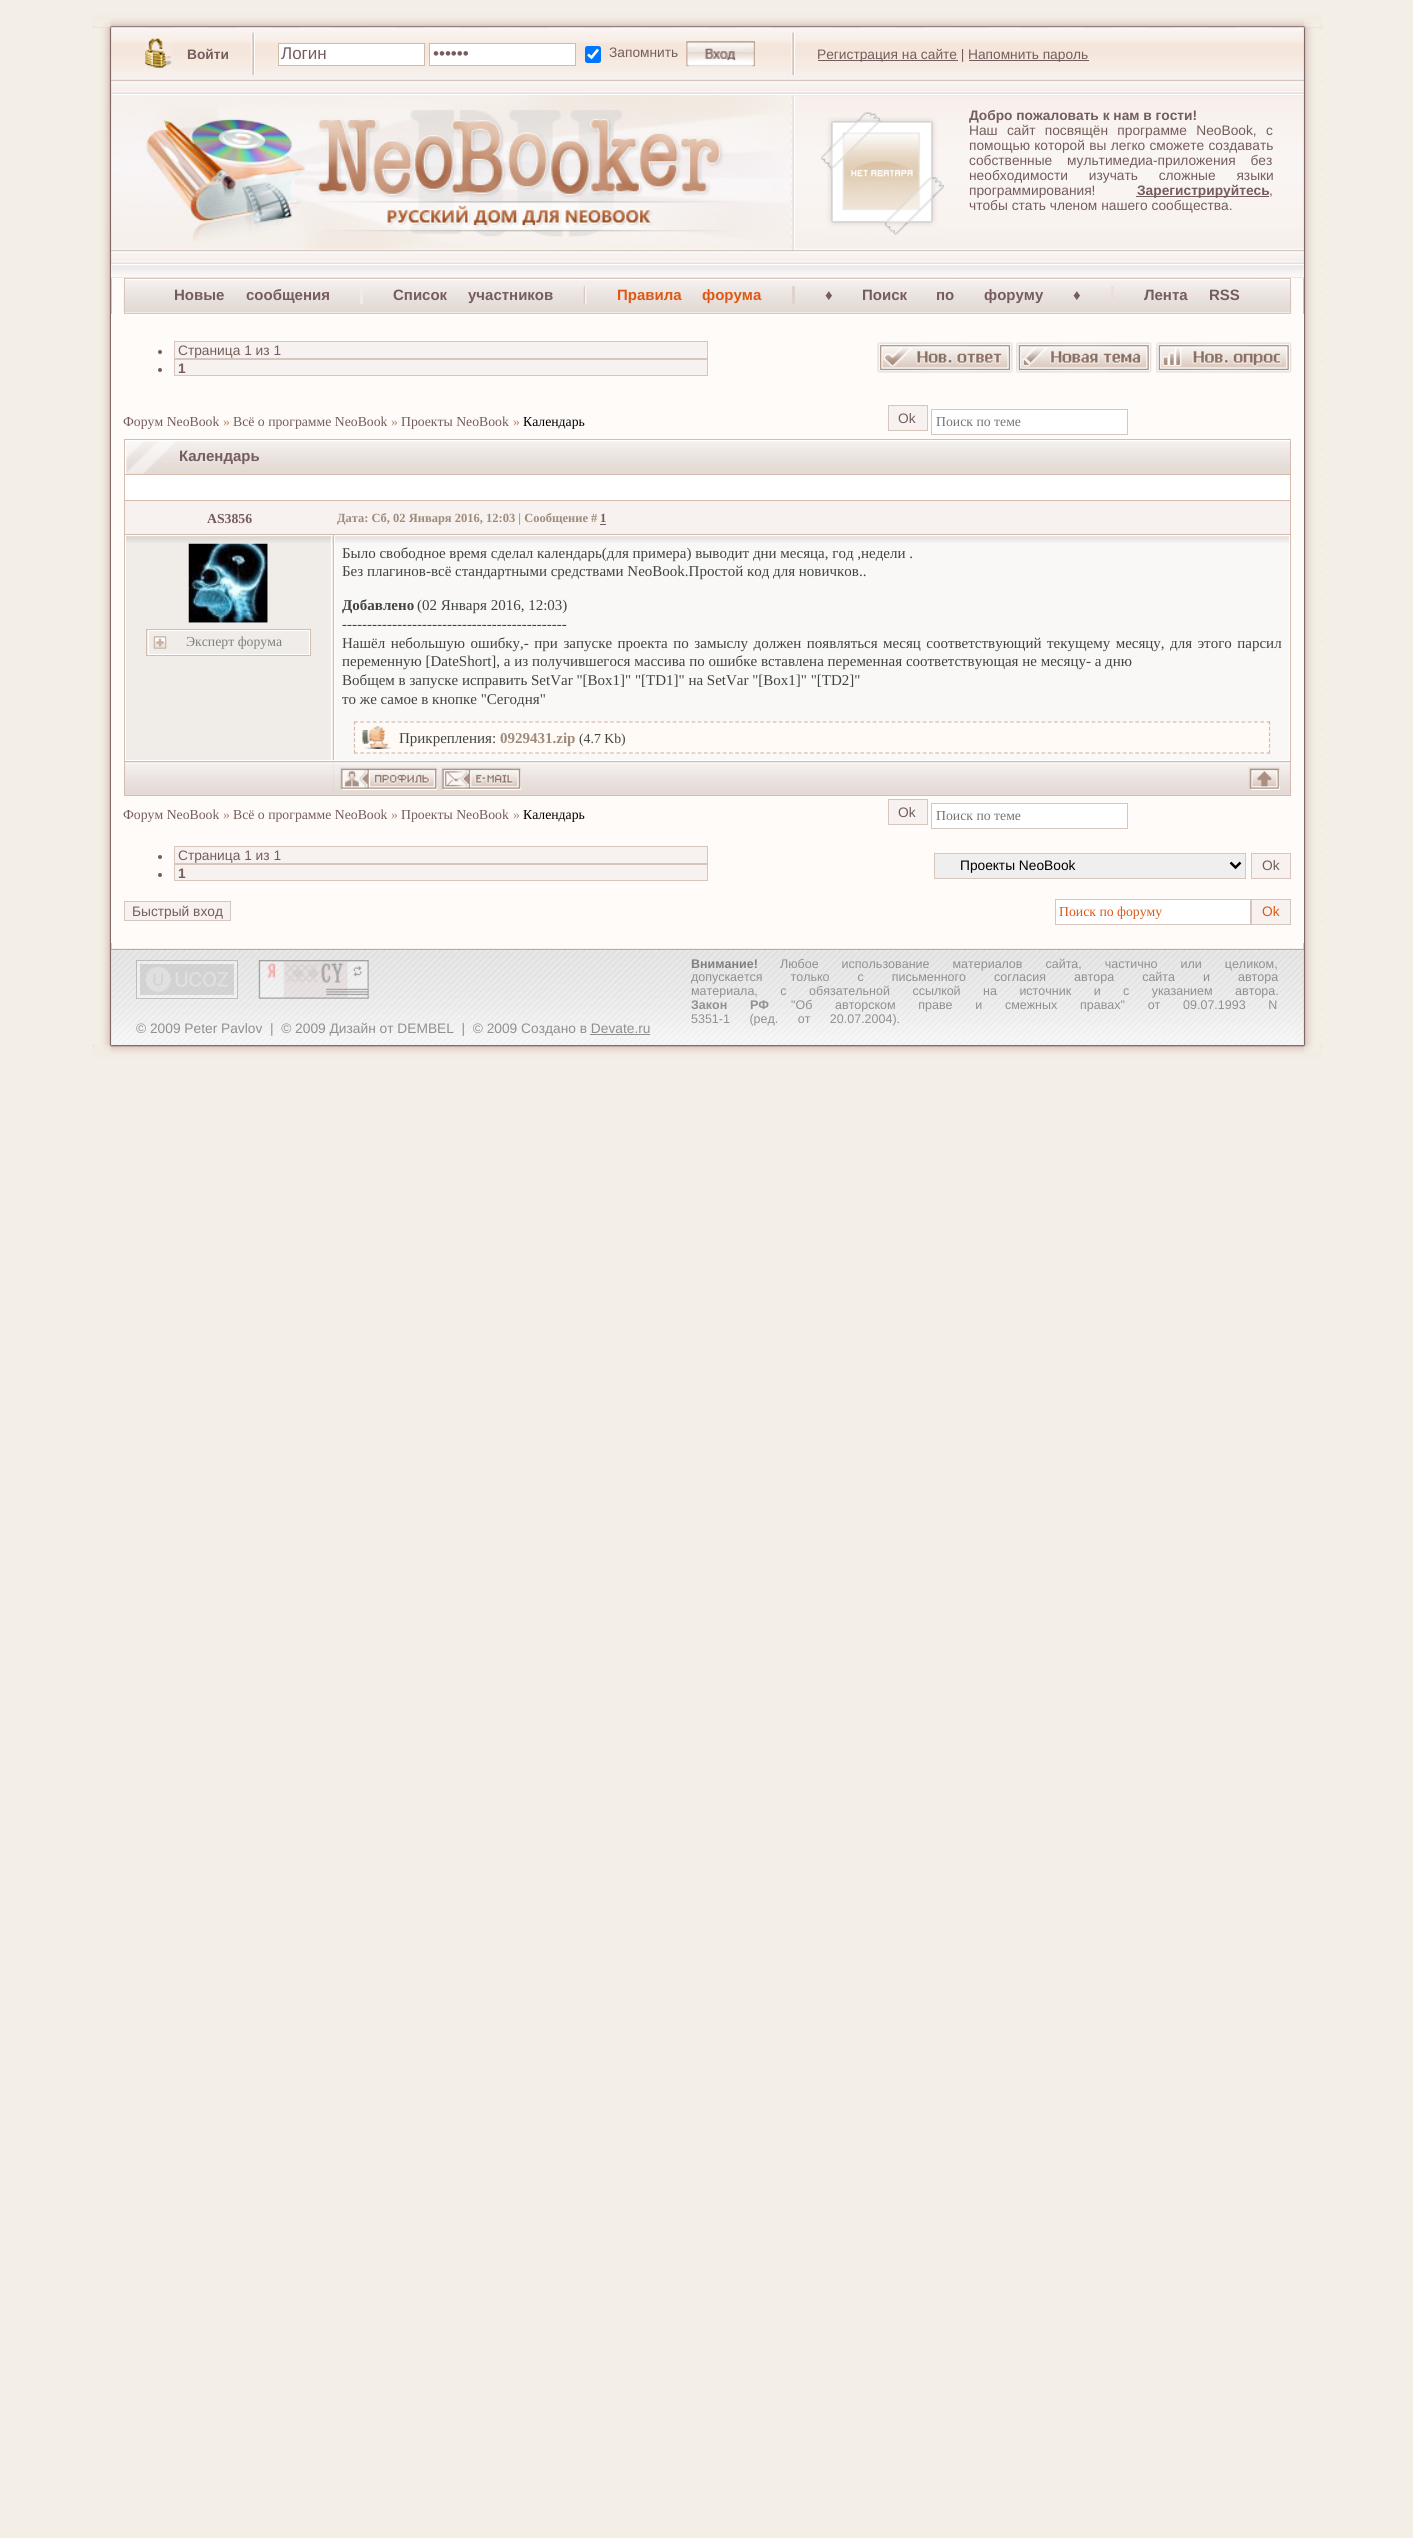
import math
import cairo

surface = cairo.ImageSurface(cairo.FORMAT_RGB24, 1413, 2538)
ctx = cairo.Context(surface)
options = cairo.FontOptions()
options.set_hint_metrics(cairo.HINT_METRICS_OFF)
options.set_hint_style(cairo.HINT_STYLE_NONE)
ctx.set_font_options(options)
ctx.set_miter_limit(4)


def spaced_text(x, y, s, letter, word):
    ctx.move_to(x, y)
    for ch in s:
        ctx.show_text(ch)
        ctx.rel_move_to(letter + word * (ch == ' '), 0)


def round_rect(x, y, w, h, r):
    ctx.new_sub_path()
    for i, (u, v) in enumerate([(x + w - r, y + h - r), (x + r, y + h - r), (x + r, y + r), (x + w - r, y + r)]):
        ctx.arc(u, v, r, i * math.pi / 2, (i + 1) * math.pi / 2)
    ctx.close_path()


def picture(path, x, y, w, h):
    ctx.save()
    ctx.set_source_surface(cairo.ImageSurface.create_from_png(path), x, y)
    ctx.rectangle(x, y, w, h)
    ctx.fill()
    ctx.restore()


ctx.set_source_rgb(0.953, 0.937, 0.906)
ctx.paint()
ctx.set_source_rgb(1, 1, 1)
ctx.rectangle(94, 27, 1227, 1)
ctx.fill()
picture("img1.png", 93, 13, 1229, 15)
ctx.set_source_rgb(0.996, 0.984, 0.976)
ctx.rectangle(111, 28, 1193, 1017)
ctx.fill()
picture("img4.png", 94, 27, 1228, 1018)
picture("img5.png", 111, 27, 1193, 53)
picture("img2.png", 93, 19, 19, 9)
picture("img3.png", 1303, 19, 19, 9)
picture("img6.png", 145, 38, 27, 30)
ctx.select_font_face("Liberation Sans", cairo.FONT_SLANT_NORMAL, cairo.FONT_WEIGHT_BOLD)
ctx.set_font_size(13.75)
ctx.set_source_rgb(0.459, 0.365, 0.365)
ctx.move_to(187, 59)
ctx.show_text("Войти")
picture("img7.png", 251, 32, 4, 43)
ctx.set_source_rgb(1, 1, 1)
ctx.rectangle(278.5, 43.5, 146, 22)
ctx.fill_preserve()
ctx.set_source_rgb(0.827, 0.733, 0.667)
ctx.set_line_width(1)
ctx.stroke()
ctx.select_font_face("Liberation Sans")
ctx.set_font_size(17)
ctx.set_source_rgb(0.459, 0.365, 0.365)
ctx.move_to(281, 59)
ctx.show_text("Логин")
ctx.set_source_rgb(1, 1, 1)
ctx.rectangle(429.5, 43.5, 146, 22)
ctx.fill_preserve()
ctx.set_source_rgb(0.827, 0.733, 0.667)
ctx.stroke()
ctx.set_source_rgb(0.459, 0.365, 0.365)
ctx.move_to(433, 59)
ctx.show_text("••••••")
ctx.set_source_rgb(0, 0.459, 1)
round_rect(585, 46, 16, 17, 2.5)
ctx.fill()
ctx.new_path()
ctx.move_to(588, 54.5)
ctx.line_to(591.5, 57.5)
ctx.line_to(598, 49.5)
ctx.set_source_rgb(1, 1, 1)
ctx.set_line_width(2.6)
ctx.stroke()
ctx.set_font_size(13.75)
ctx.set_source_rgb(0.459, 0.365, 0.365)
ctx.move_to(609, 57)
ctx.show_text("Запомнить")
picture("img8.png", 686, 41, 69, 26)
picture("img7.png", 791, 32, 4, 43)
ctx.rectangle(818, 60, 140, 1)
ctx.fill()
ctx.move_to(817, 59)
ctx.show_text("Регистрация на сайте |")
ctx.rectangle(969, 60, 120, 1)
ctx.fill()
ctx.move_to(968, 59)
ctx.show_text("Напомнить пароль")
picture("img9.png", 111, 80, 1193, 15)
picture("img10.png", 111, 95, 1193, 155)
picture("img11.png", 112, 95, 679, 155)
picture("img12.png", 791, 95, 4, 155)
picture("img13.png", 821, 112, 123, 123)
ctx.select_font_face("Liberation Sans", cairo.FONT_SLANT_NORMAL, cairo.FONT_WEIGHT_BOLD)
ctx.move_to(969, 120)
ctx.show_text("Добро пожаловать к нам в гости!")
ctx.select_font_face("Liberation Sans")
spaced_text(969, 135, "Наш сайт посвящён программе NeoBook, с", 0, 5.5)
spaced_text(969, 150, "помощью которой вы легко сможете создавать", 0, 0.5)
spaced_text(969, 165, "собственные мультимедиа-приложения без", 0, 11)
spaced_text(969, 180, "необходимости изучать сложные языки", 0, 17)
ctx.move_to(969, 195)
ctx.show_text("программирования!")
ctx.rectangle(1136, 196, 133, 1)
ctx.fill()
ctx.select_font_face("Liberation Sans", cairo.FONT_SLANT_NORMAL, cairo.FONT_WEIGHT_BOLD)
ctx.move_to(1137, 195)
ctx.show_text("Зарегистрируйтесь")
ctx.select_font_face("Liberation Sans")
ctx.move_to(1269, 195)
ctx.show_text(",")
ctx.move_to(969, 210)
ctx.show_text("чтобы стать членом нашего сообщества.")
picture("img9.png", 111, 250, 1193, 15)
ctx.set_source_rgb(0.929, 0.925, 0.925)
ctx.rectangle(111, 265, 1193, 13)
ctx.fill()
picture("img14.png", 111, 269, 1193, 9)
picture("img15.png", 123, 278, 1169, 36)
ctx.rectangle(124.5, 278.5, 1166, 35)
ctx.set_source_rgb(0.839, 0.776, 0.745)
ctx.set_line_width(1)
ctx.stroke()
ctx.select_font_face("Liberation Sans", cairo.FONT_SLANT_NORMAL, cairo.FONT_WEIGHT_BOLD)
ctx.set_font_size(15)
ctx.set_source_rgb(0.459, 0.365, 0.365)
ctx.move_to(174, 300)
ctx.show_text("Новые")
ctx.move_to(246, 300)
ctx.show_text("сообщения")
ctx.set_source_rgb(0.945, 0.918, 0.902)
ctx.rectangle(360, 286, 3, 18)
ctx.fill()
ctx.set_source_rgb(0.459, 0.365, 0.365)
ctx.move_to(393, 300)
ctx.show_text("Список")
ctx.move_to(468, 300)
ctx.show_text("участников")
picture("img16.png", 583, 286, 4, 18)
ctx.set_source_rgb(0.867, 0.345, 0.086)
ctx.move_to(617, 300)
ctx.show_text("Правила")
ctx.move_to(702, 300)
ctx.show_text("форума")
ctx.set_source_rgb(0.878, 0.827, 0.8)
ctx.rectangle(792, 286, 3, 18)
ctx.fill()
ctx.set_source_rgb(0.459, 0.365, 0.365)
ctx.move_to(825, 300)
ctx.show_text("♦")
ctx.move_to(862, 300)
ctx.show_text("Поиск")
ctx.move_to(936, 300)
ctx.show_text("по")
ctx.move_to(984, 300)
ctx.show_text("форуму")
ctx.move_to(1073, 300)
ctx.show_text("♦")
ctx.set_source_rgb(0.918, 0.878, 0.859)
ctx.rectangle(1111, 286, 3, 18)
ctx.fill()
ctx.set_source_rgb(0.459, 0.365, 0.365)
ctx.move_to(1144, 300)
ctx.show_text("Лента")
ctx.move_to(1209, 300)
ctx.show_text("RSS")
ctx.set_source_rgb(0.996, 0.984, 0.976)
ctx.rectangle(111, 314, 1193, 629)
ctx.fill()
ctx.set_source_rgb(0.965, 0.949, 0.937)
ctx.rectangle(174.5, 341.5, 533, 17)
ctx.fill_preserve()
ctx.set_source_rgb(0.839, 0.776, 0.745)
ctx.stroke()
ctx.set_source_rgb(0.459, 0.365, 0.365)
ctx.arc(160, 352, 2, 0, 2 * math.pi)
ctx.fill()
ctx.select_font_face("Liberation Sans")
ctx.set_font_size(13.75)
ctx.move_to(178, 355)
ctx.show_text("Страница 1 из 1")
ctx.set_source_rgb(0.965, 0.949, 0.937)
ctx.rectangle(174.5, 359.5, 533, 16)
ctx.fill_preserve()
ctx.set_source_rgb(0.839, 0.776, 0.745)
ctx.stroke()
ctx.set_source_rgb(0.459, 0.365, 0.365)
ctx.arc(160, 370, 2, 0, 2 * math.pi)
ctx.fill()
ctx.select_font_face("Liberation Sans", cairo.FONT_SLANT_NORMAL, cairo.FONT_WEIGHT_BOLD)
ctx.move_to(178, 373)
ctx.show_text("1")
picture("img17.png", 877, 342, 136, 31)
picture("img18.png", 1016, 342, 136, 31)
picture("img19.png", 1156, 342, 136, 31)
ctx.select_font_face("Liberation Serif")
ctx.move_to(123, 426)
ctx.show_text("Форум NeoBook")
ctx.set_source_rgb(0.698, 0.525, 0.427)
ctx.move_to(223, 426)
ctx.show_text("»")
ctx.set_source_rgb(0.459, 0.365, 0.365)
ctx.move_to(233, 426)
ctx.show_text("Всё о программе NeoBook")
ctx.set_source_rgb(0.698, 0.525, 0.427)
ctx.move_to(391, 426)
ctx.show_text("»")
ctx.set_source_rgb(0.459, 0.365, 0.365)
ctx.move_to(401, 426)
ctx.show_text("Проекты NeoBook")
ctx.set_source_rgb(0.698, 0.525, 0.427)
ctx.move_to(513, 426)
ctx.show_text("»")
ctx.set_source_rgb(0, 0, 0)
ctx.move_to(523, 426)
ctx.show_text("Календарь")
ctx.set_source_rgb(0.965, 0.949, 0.937)
ctx.rectangle(888.5, 405.5, 39, 25)
ctx.fill_preserve()
ctx.set_source_rgb(0.839, 0.776, 0.745)
ctx.stroke()
ctx.select_font_face("Liberation Sans")
ctx.set_source_rgb(0.459, 0.365, 0.365)
ctx.move_to(898, 423)
ctx.show_text("Ok")
ctx.set_source_rgb(1, 1, 1)
ctx.rectangle(931.5, 409.5, 196, 25)
ctx.fill_preserve()
ctx.set_source_rgb(0.839, 0.776, 0.745)
ctx.stroke()
ctx.select_font_face("Liberation Serif")
ctx.set_source_rgb(0.459, 0.459, 0.459)
ctx.move_to(936, 426)
ctx.show_text("Поиск по теме")
ctx.set_source_rgb(0.827, 0.741, 0.69)
ctx.rectangle(124, 439, 1167, 357)
ctx.fill()
picture("img20.png", 125, 440, 1165, 34)
picture("img21.png", 125, 441, 64, 33)
ctx.select_font_face("Liberation Sans", cairo.FONT_SLANT_NORMAL, cairo.FONT_WEIGHT_BOLD)
ctx.set_font_size(15)
ctx.set_source_rgb(0.459, 0.365, 0.365)
ctx.move_to(179, 461)
ctx.show_text("Календарь")
ctx.set_source_rgb(1, 1, 1)
ctx.rectangle(125, 475, 1165, 25)
ctx.fill()
ctx.set_source_rgb(0.965, 0.949, 0.937)
ctx.rectangle(125, 501, 1165, 33)
ctx.fill()
ctx.select_font_face("Liberation Serif", cairo.FONT_SLANT_NORMAL, cairo.FONT_WEIGHT_BOLD)
ctx.set_font_size(13.75)
ctx.set_source_rgb(0.459, 0.365, 0.365)
ctx.move_to(207, 523)
ctx.show_text("AS3856")
ctx.set_font_size(12.5)
ctx.set_source_rgb(0.624, 0.545, 0.482)
ctx.move_to(337, 522)
ctx.show_text("Дата: Сб, 02 Января 2016, 12:03 | Сообщение #")
ctx.set_source_rgb(0.459, 0.365, 0.365)
ctx.move_to(600, 522)
ctx.show_text("1")
ctx.rectangle(600, 524, 6, 1)
ctx.fill()
ctx.set_source_rgb(0.941, 0.922, 0.906)
ctx.rectangle(126, 536, 207, 224)
ctx.fill()
picture("img22.png", 126, 536, 207, 7)
ctx.set_source_rgb(1, 1, 1)
ctx.rectangle(125, 535, 209, 1)
ctx.fill()
ctx.set_source_rgb(0.827, 0.741, 0.69)
ctx.rectangle(333, 535, 1, 1)
ctx.fill()
ctx.set_source_rgb(1, 1, 1)
ctx.rectangle(125, 760, 209, 1)
ctx.fill()
ctx.rectangle(125, 535, 1, 226)
ctx.fill()
ctx.rectangle(331, 536, 1, 225)
ctx.fill()
ctx.rectangle(189, 544, 79, 79)
ctx.fill()
picture("img23.png", 188, 543, 80, 80)
picture("img24.png", 153, 636, 14, 13)
ctx.rectangle(146.5, 629.5, 164, 26)
ctx.set_source_rgb(0.827, 0.741, 0.69)
ctx.stroke()
ctx.rectangle(148.5, 630.5, 161, 24)
ctx.set_source_rgb(1, 1, 1)
ctx.stroke()
ctx.select_font_face("Liberation Serif")
ctx.set_font_size(13.75)
ctx.set_source_rgb(0.502, 0.502, 0.502)
ctx.move_to(186, 646)
ctx.show_text("Эксперт форума")
ctx.set_source_rgb(0.98, 0.969, 0.961)
ctx.rectangle(335, 536, 954, 224)
ctx.fill()
picture("img25.png", 335, 536, 954, 7)
ctx.rectangle(334.5, 535.5, 955, 225)
ctx.set_source_rgb(1, 1, 1)
ctx.stroke()
ctx.set_font_size(15)
ctx.set_source_rgb(0.251, 0.271, 0.251)
ctx.move_to(342, 558)
ctx.show_text("Было свободное время сделал календарь(для примера) выводит дни месяца, год ,недели .")
ctx.move_to(342, 576)
ctx.show_text("Без плагинов-всё стандартными средствами NeoBook.Простой код для новичков..")
ctx.select_font_face("Liberation Serif", cairo.FONT_SLANT_NORMAL, cairo.FONT_WEIGHT_BOLD)
ctx.move_to(342, 610)
ctx.show_text("Добавлено")
ctx.select_font_face("Liberation Serif")
ctx.move_to(417, 610)
ctx.show_text("(02 Января 2016, 12:03)")
ctx.move_to(342, 629)
ctx.show_text("---------------------------------------------")
spaced_text(342, 648, "Нашёл небольшую ошибку,- при запуске проекта по замыслу должен появляться месяц соответствующий текущему месяцу, для этого парсил", 0, 1.75)
ctx.move_to(342, 666)
ctx.show_text("переменную [DateShort], а из получившегося массива по ошибке вставлена переменная соответствующая не месяцу- а дню")
ctx.move_to(342, 685)
ctx.show_text("Вобщем в запуске исправить SetVar \"[Box1]\" \"[TD1]\" на SetVar \"[Box1]\" \"[TD2]\"")
ctx.move_to(342, 704)
ctx.show_text("то же самое в кнопке \"Сегодня\"")
ctx.set_source_rgb(1, 0.98, 0.961)
ctx.rectangle(354, 721, 916, 33)
ctx.fill()
picture("img26.png", 362, 726, 29, 23)
ctx.new_path()
ctx.move_to(354, 722)
ctx.line_to(1270, 722)
ctx.set_source_rgb(0.827, 0.741, 0.69)
ctx.set_line_width(1.2)
ctx.set_dash([3.75, 2.5])
ctx.stroke()
ctx.new_path()
ctx.move_to(1269.5, 721)
ctx.line_to(1269.5, 754)
ctx.set_dash([3.75, 2])
ctx.stroke()
ctx.new_path()
ctx.move_to(354, 753)
ctx.line_to(1270, 753)
ctx.set_dash([3.75, 2.5])
ctx.stroke()
ctx.new_path()
ctx.move_to(354.5, 721)
ctx.line_to(354.5, 754)
ctx.set_dash([3.75, 2])
ctx.stroke()
ctx.set_source_rgb(0.251, 0.271, 0.251)
ctx.move_to(399, 743)
ctx.show_text("Прикрепления:")
ctx.select_font_face("Liberation Serif", cairo.FONT_SLANT_NORMAL, cairo.FONT_WEIGHT_BOLD)
ctx.set_source_rgb(0.624, 0.545, 0.482)
ctx.move_to(500, 743)
ctx.show_text("0929431.zip")
ctx.select_font_face("Liberation Serif")
ctx.set_font_size(13.75)
ctx.set_source_rgb(0.251, 0.271, 0.251)
ctx.move_to(579, 743)
ctx.show_text("(4.7 Kb)")
picture("img27.png", 125, 762, 209, 33)
picture("img28.png", 333, 761, 957, 34)
ctx.set_source_rgb(0.827, 0.741, 0.69)
ctx.rectangle(334, 761, 956, 1)
ctx.fill()
picture("img29.png", 340, 767, 98, 23)
picture("img30.png", 441, 767, 81, 23)
picture("img31.png", 1248, 767, 32, 23)
ctx.set_source_rgb(0.459, 0.365, 0.365)
ctx.move_to(123, 819)
ctx.show_text("Форум NeoBook")
ctx.set_source_rgb(0.698, 0.525, 0.427)
ctx.move_to(223, 819)
ctx.show_text("»")
ctx.set_source_rgb(0.459, 0.365, 0.365)
ctx.move_to(233, 819)
ctx.show_text("Всё о программе NeoBook")
ctx.set_source_rgb(0.698, 0.525, 0.427)
ctx.move_to(391, 819)
ctx.show_text("»")
ctx.set_source_rgb(0.459, 0.365, 0.365)
ctx.move_to(401, 819)
ctx.show_text("Проекты NeoBook")
ctx.set_source_rgb(0.698, 0.525, 0.427)
ctx.move_to(513, 819)
ctx.show_text("»")
ctx.set_source_rgb(0, 0, 0)
ctx.move_to(523, 819)
ctx.show_text("Календарь")
ctx.set_source_rgb(0.965, 0.949, 0.937)
ctx.rectangle(888.5, 799.5, 39, 25)
ctx.fill_preserve()
ctx.set_source_rgb(0.839, 0.776, 0.745)
ctx.set_line_width(1)
ctx.set_dash([])
ctx.stroke()
ctx.select_font_face("Liberation Sans")
ctx.set_source_rgb(0.459, 0.365, 0.365)
ctx.move_to(898, 817)
ctx.show_text("Ok")
ctx.set_source_rgb(1, 1, 1)
ctx.rectangle(931.5, 803.5, 196, 25)
ctx.fill_preserve()
ctx.set_source_rgb(0.839, 0.776, 0.745)
ctx.stroke()
ctx.select_font_face("Liberation Serif")
ctx.set_source_rgb(0.459, 0.459, 0.459)
ctx.move_to(936, 820)
ctx.show_text("Поиск по теме")
ctx.set_source_rgb(0.965, 0.949, 0.937)
ctx.rectangle(174.5, 846.5, 533, 17)
ctx.fill_preserve()
ctx.set_source_rgb(0.839, 0.776, 0.745)
ctx.stroke()
ctx.set_source_rgb(0.459, 0.365, 0.365)
ctx.arc(160, 857, 2, 0, 2 * math.pi)
ctx.fill()
ctx.select_font_face("Liberation Sans")
ctx.move_to(178, 860)
ctx.show_text("Страница 1 из 1")
ctx.set_source_rgb(0.965, 0.949, 0.937)
ctx.rectangle(174.5, 864.5, 533, 16)
ctx.fill_preserve()
ctx.set_source_rgb(0.839, 0.776, 0.745)
ctx.stroke()
ctx.set_source_rgb(0.459, 0.365, 0.365)
ctx.arc(160, 875, 2, 0, 2 * math.pi)
ctx.fill()
ctx.select_font_face("Liberation Sans", cairo.FONT_SLANT_NORMAL, cairo.FONT_WEIGHT_BOLD)
ctx.move_to(178, 878)
ctx.show_text("1")
ctx.set_source_rgb(0.937, 0.937, 0.937)
ctx.rectangle(934.5, 853.5, 311, 25)
ctx.fill_preserve()
ctx.set_source_rgb(0.839, 0.776, 0.745)
ctx.stroke()
ctx.new_path()
ctx.move_to(1230.5, 862.5)
ctx.line_to(1235.5, 867.5)
ctx.line_to(1240.5, 862.5)
ctx.set_source_rgb(0, 0, 0)
ctx.set_line_width(2.5)
ctx.stroke()
ctx.select_font_face("Liberation Sans")
ctx.move_to(960, 870)
ctx.show_text("Проекты NeoBook")
ctx.set_source_rgb(0.965, 0.949, 0.937)
ctx.rectangle(1251.5, 853.5, 39, 25)
ctx.fill_preserve()
ctx.set_source_rgb(0.839, 0.776, 0.745)
ctx.set_line_width(1)
ctx.stroke()
ctx.set_source_rgb(0.459, 0.365, 0.365)
ctx.move_to(1262, 870)
ctx.show_text("Ok")
ctx.set_source_rgb(0.965, 0.949, 0.937)
ctx.rectangle(124.5, 901.5, 106, 19)
ctx.fill_preserve()
ctx.set_source_rgb(0.839, 0.776, 0.745)
ctx.stroke()
ctx.set_source_rgb(0.459, 0.365, 0.365)
ctx.move_to(132, 916)
ctx.show_text("Быстрый вход")
ctx.set_source_rgb(1, 1, 1)
ctx.rectangle(1055.5, 899.5, 195, 25)
ctx.fill_preserve()
ctx.set_source_rgb(0.839, 0.776, 0.745)
ctx.stroke()
ctx.select_font_face("Liberation Serif")
ctx.set_source_rgb(0.867, 0.345, 0.086)
ctx.move_to(1059, 916)
ctx.show_text("Поиск по форуму")
ctx.set_source_rgb(0.965, 0.949, 0.937)
ctx.rectangle(1251.5, 899.5, 39, 25)
ctx.fill_preserve()
ctx.set_source_rgb(0.839, 0.776, 0.745)
ctx.stroke()
ctx.select_font_face("Liberation Sans")
ctx.set_source_rgb(0.867, 0.345, 0.086)
ctx.move_to(1262, 916)
ctx.show_text("Ok")
picture("img32.png", 111, 948, 1193, 97)
ctx.set_source_rgb(0.718, 0.663, 0.663)
ctx.rectangle(111, 949, 1193, 1)
ctx.fill()
picture("img33.png", 136, 960, 102, 39)
picture("img34.png", 258, 960, 111, 39)
ctx.select_font_face("Liberation Sans", cairo.FONT_SLANT_NORMAL, cairo.FONT_WEIGHT_BOLD)
ctx.set_font_size(12.5)
ctx.set_source_rgb(0.502, 0.502, 0.502)
ctx.move_to(691, 968)
ctx.show_text("Внимание!")
ctx.select_font_face("Liberation Sans")
ctx.set_source_rgb(0.565, 0.565, 0.565)
spaced_text(780, 968, "Любое использование материалов сайта, частично или целиком,", 0, 19.5)
spaced_text(691, 981, "допускается только с письменного согласия автора сайта и автора", 0, 24.5)
spaced_text(691, 995, "материала, с обязательной ссылкой на источник и с указанием автора.", 0, 19)
ctx.select_font_face("Liberation Sans", cairo.FONT_SLANT_NORMAL, cairo.FONT_WEIGHT_BOLD)
spaced_text(691, 1009, "Закон РФ", 0, 19.25)
ctx.select_font_face("Liberation Sans")
spaced_text(791, 1009, "\"Об авторском праве и смежных правах\" от 09.07.1993 N", 0, 19.25)
spaced_text(691, 1023, "5351-1 (ред. от 20.07.2004).", 0, 16)
ctx.set_font_size(13.75)
ctx.move_to(136, 1033)
ctx.show_text("© 2009 Peter Pavlov  |  © 2009 Дизайн от DEMBEL  |  © 2009 Создано в Devate.ru")
ctx.rectangle(590, 1034, 60, 1)
ctx.fill()
picture("img35.png", 93, 1045, 1229, 15)
picture("img36.png", 93, 1045, 19, 9)
picture("img37.png", 1303, 1045, 19, 9)
surface.write_to_png("page.png")
